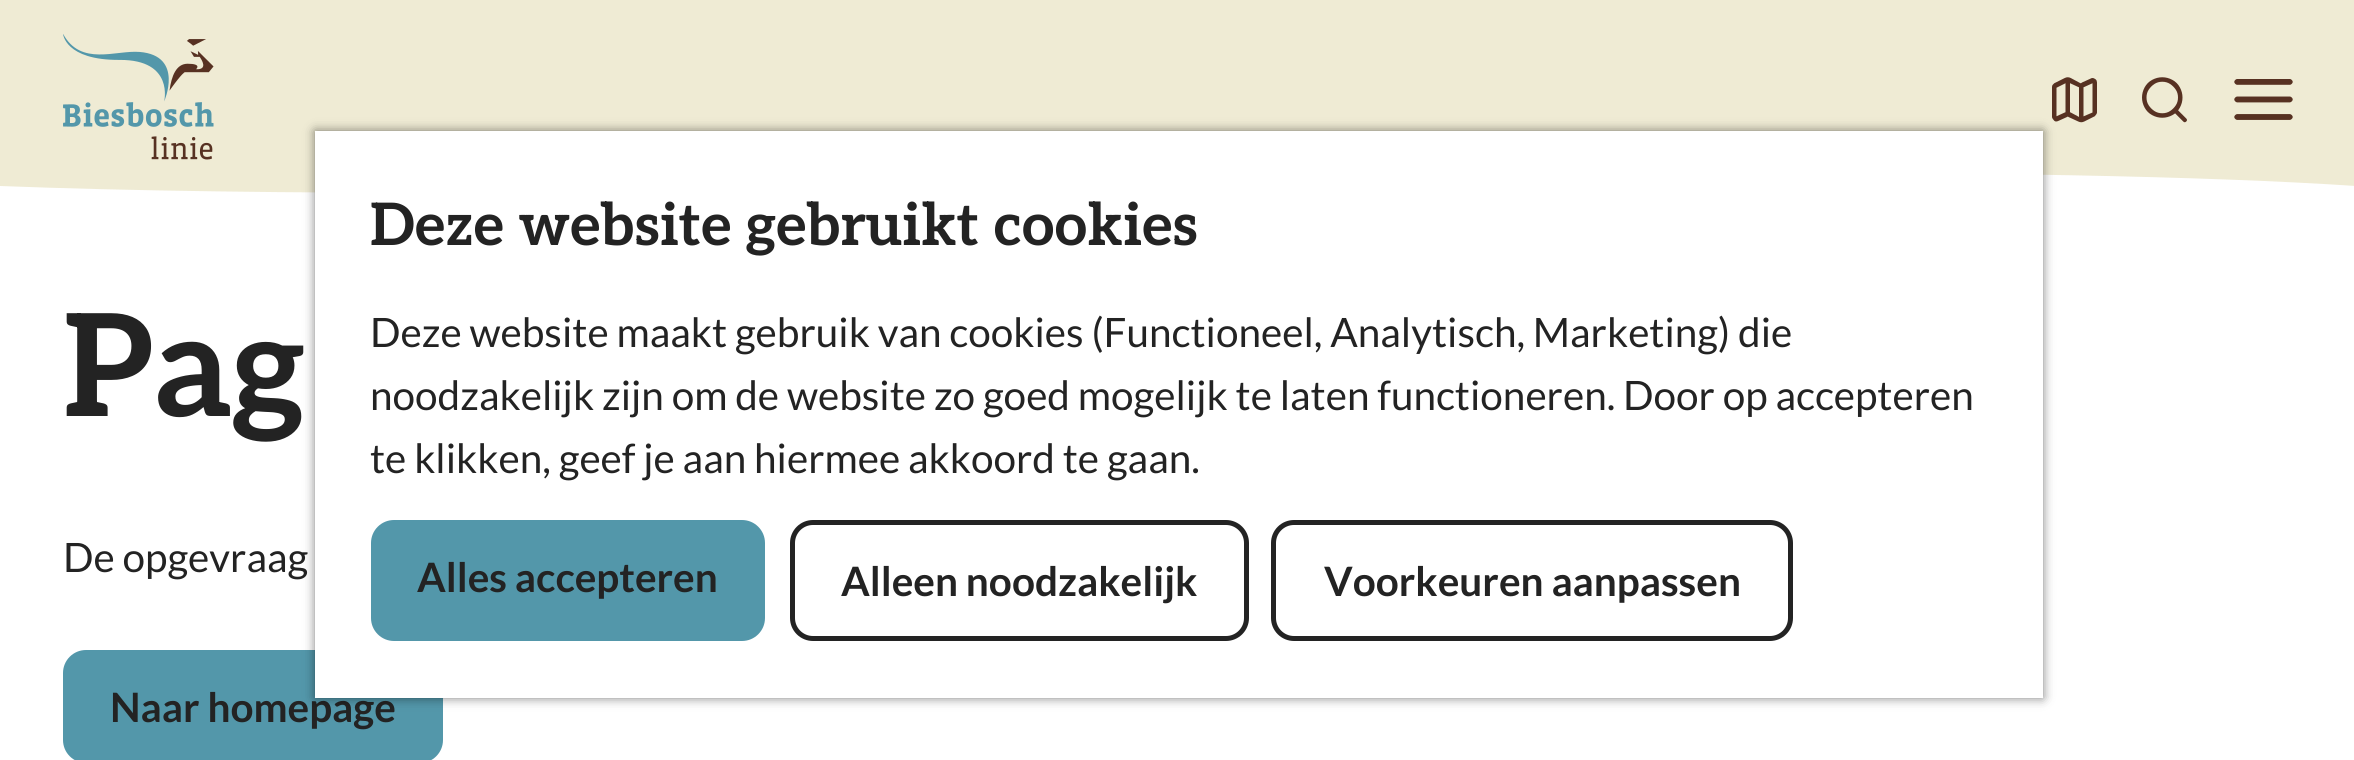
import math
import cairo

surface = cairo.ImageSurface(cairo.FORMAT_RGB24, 2354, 760)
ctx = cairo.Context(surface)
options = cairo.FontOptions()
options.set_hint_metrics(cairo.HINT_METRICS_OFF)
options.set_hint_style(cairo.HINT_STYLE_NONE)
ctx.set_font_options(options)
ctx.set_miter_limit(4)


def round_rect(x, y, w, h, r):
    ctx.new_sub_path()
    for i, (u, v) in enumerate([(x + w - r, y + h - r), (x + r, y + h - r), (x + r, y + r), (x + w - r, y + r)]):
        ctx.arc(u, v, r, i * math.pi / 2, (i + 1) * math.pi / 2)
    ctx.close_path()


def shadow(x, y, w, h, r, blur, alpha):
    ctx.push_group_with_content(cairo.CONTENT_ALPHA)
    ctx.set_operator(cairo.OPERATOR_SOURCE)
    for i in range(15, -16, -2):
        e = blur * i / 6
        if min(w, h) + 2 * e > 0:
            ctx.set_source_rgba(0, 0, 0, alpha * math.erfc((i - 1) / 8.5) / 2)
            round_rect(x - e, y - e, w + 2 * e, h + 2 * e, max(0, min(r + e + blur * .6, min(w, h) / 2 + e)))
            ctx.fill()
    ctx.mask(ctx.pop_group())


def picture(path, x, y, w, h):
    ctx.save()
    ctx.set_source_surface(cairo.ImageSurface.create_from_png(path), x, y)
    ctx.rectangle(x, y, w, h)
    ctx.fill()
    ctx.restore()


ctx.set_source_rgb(1, 1, 1)
ctx.paint()
ctx.set_source_rgb(0.937, 0.918, 0.831)
ctx.rectangle(0, 0, 2354, 32)
ctx.fill()
ctx.new_path()
ctx.move_to(0, 32)
ctx.line_to(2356, 32)
ctx.line_to(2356, 186)
ctx.curve_to(2207, 176, 1975, 172, 1661, 172)
ctx.curve_to(1190, 172, 762, 193, 477, 193)
ctx.curve_to(288, 193, 129, 191, 0, 186)
ctx.close_path()
ctx.fill()
picture("img1.png", 63, 34, 151, 126)
picture("img2.png", 2052, 77, 45, 46)
picture("img3.png", 2142, 77, 45, 46)
picture("img4.png", 2234, 79, 59, 41)
ctx.select_font_face("Aleo", cairo.FONT_SLANT_NORMAL, cairo.FONT_WEIGHT_BOLD)
ctx.set_font_size(142)
ctx.set_source_rgb(0.137, 0.137, 0.137)
ctx.move_to(63, 416)
ctx.show_text("Pag")
ctx.select_font_face("Lato")
ctx.set_font_size(40.5)
ctx.move_to(63, 572)
ctx.show_text("De opgevraag")
ctx.set_source_rgb(0.325, 0.592, 0.667)
round_rect(63, 650, 380, 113, 23)
ctx.fill()
ctx.select_font_face("Lato", cairo.FONT_SLANT_NORMAL, cairo.FONT_WEIGHT_BOLD)
ctx.set_source_rgb(0.137, 0.137, 0.137)
ctx.move_to(110, 722)
ctx.show_text("Naar homepage")
ctx.set_source_rgb(0, 0, 0)
shadow(315, 131, 1728, 567, 0, 5.5, 0.5)
ctx.set_source_rgb(1, 1, 1)
ctx.rectangle(315, 131, 1728, 567)
ctx.fill()
ctx.select_font_face("Aleo", cairo.FONT_SLANT_NORMAL, cairo.FONT_WEIGHT_BOLD)
ctx.set_font_size(58.5)
ctx.set_source_rgb(0.137, 0.137, 0.137)
ctx.move_to(370, 245)
ctx.show_text("Deze website gebruikt cookies")
ctx.select_font_face("Lato")
ctx.set_font_size(40.5)
ctx.move_to(370, 347)
ctx.show_text("Deze website maakt gebruik van cookies (Functioneel, Analytisch, Marketing) die")
ctx.move_to(370, 410)
ctx.show_text("noodzakelijk zijn om de website zo goed mogelijk te laten functioneren. Door op accepteren")
ctx.move_to(370, 473)
ctx.show_text("te klikken, geef je aan hiermee akkoord te gaan.")
ctx.set_source_rgb(0.325, 0.592, 0.667)
round_rect(371, 520, 394, 121, 23)
ctx.fill()
ctx.select_font_face("Lato", cairo.FONT_SLANT_NORMAL, cairo.FONT_WEIGHT_BOLD)
ctx.set_source_rgb(0.137, 0.137, 0.137)
ctx.move_to(417, 592)
ctx.show_text("Alles accepteren")
round_rect(792.5, 522.5, 454, 116, 20.5)
ctx.set_line_width(5)
ctx.stroke()
ctx.move_to(841, 596)
ctx.show_text("Alleen noodzakelijk")
round_rect(1273.5, 522.5, 517, 116, 20.5)
ctx.stroke()
ctx.move_to(1324, 596)
ctx.show_text("Voorkeuren aanpassen")
surface.write_to_png("page.png")
